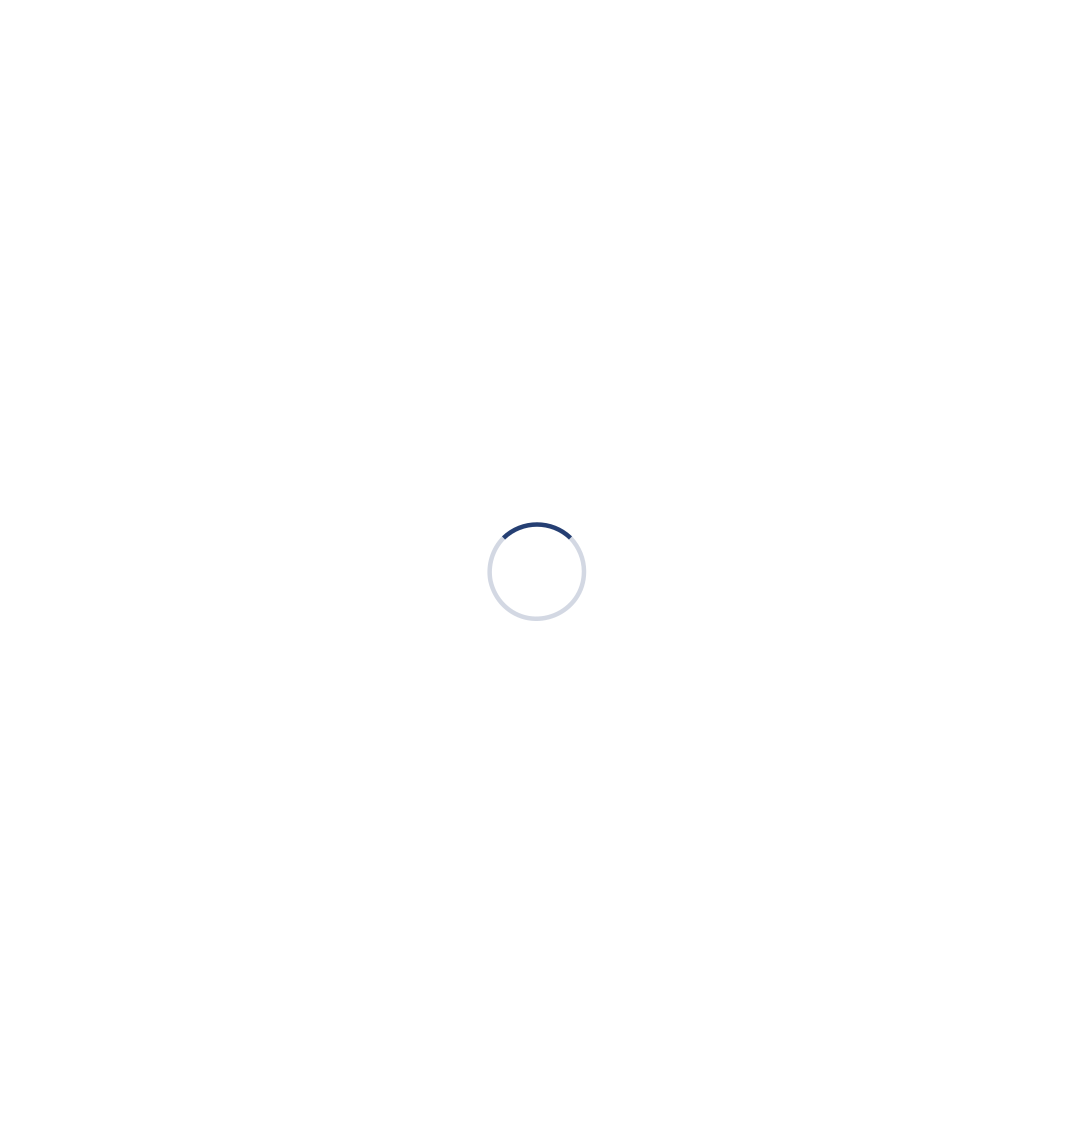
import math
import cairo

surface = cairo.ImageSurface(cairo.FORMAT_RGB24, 1072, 1143)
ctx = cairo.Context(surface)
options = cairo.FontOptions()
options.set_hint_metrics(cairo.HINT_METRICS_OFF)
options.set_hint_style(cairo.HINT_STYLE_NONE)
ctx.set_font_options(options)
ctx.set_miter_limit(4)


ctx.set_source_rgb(1, 1, 1)
ctx.paint()
ctx.new_path()
ctx.move_to(503.5, 538)
ctx.curve_to(522, 520, 552, 520, 570.5, 538)
ctx.set_source_rgb(0.145, 0.247, 0.451)
ctx.set_line_width(4.5)
ctx.stroke()
ctx.new_path()
ctx.move_to(570.5, 538)
ctx.curve_to(579, 547, 584, 559, 584, 571.5)
ctx.curve_to(584, 613.5, 533, 634.5, 503.5, 605)
ctx.curve_to(497, 598.5, 492.5, 590, 490.5, 581)
ctx.curve_to(487.5, 565.5, 492.5, 549, 503.5, 538)
ctx.set_source_rgba(0.145, 0.247, 0.451, 0.2)
ctx.stroke()
surface.write_to_png("page.png")
